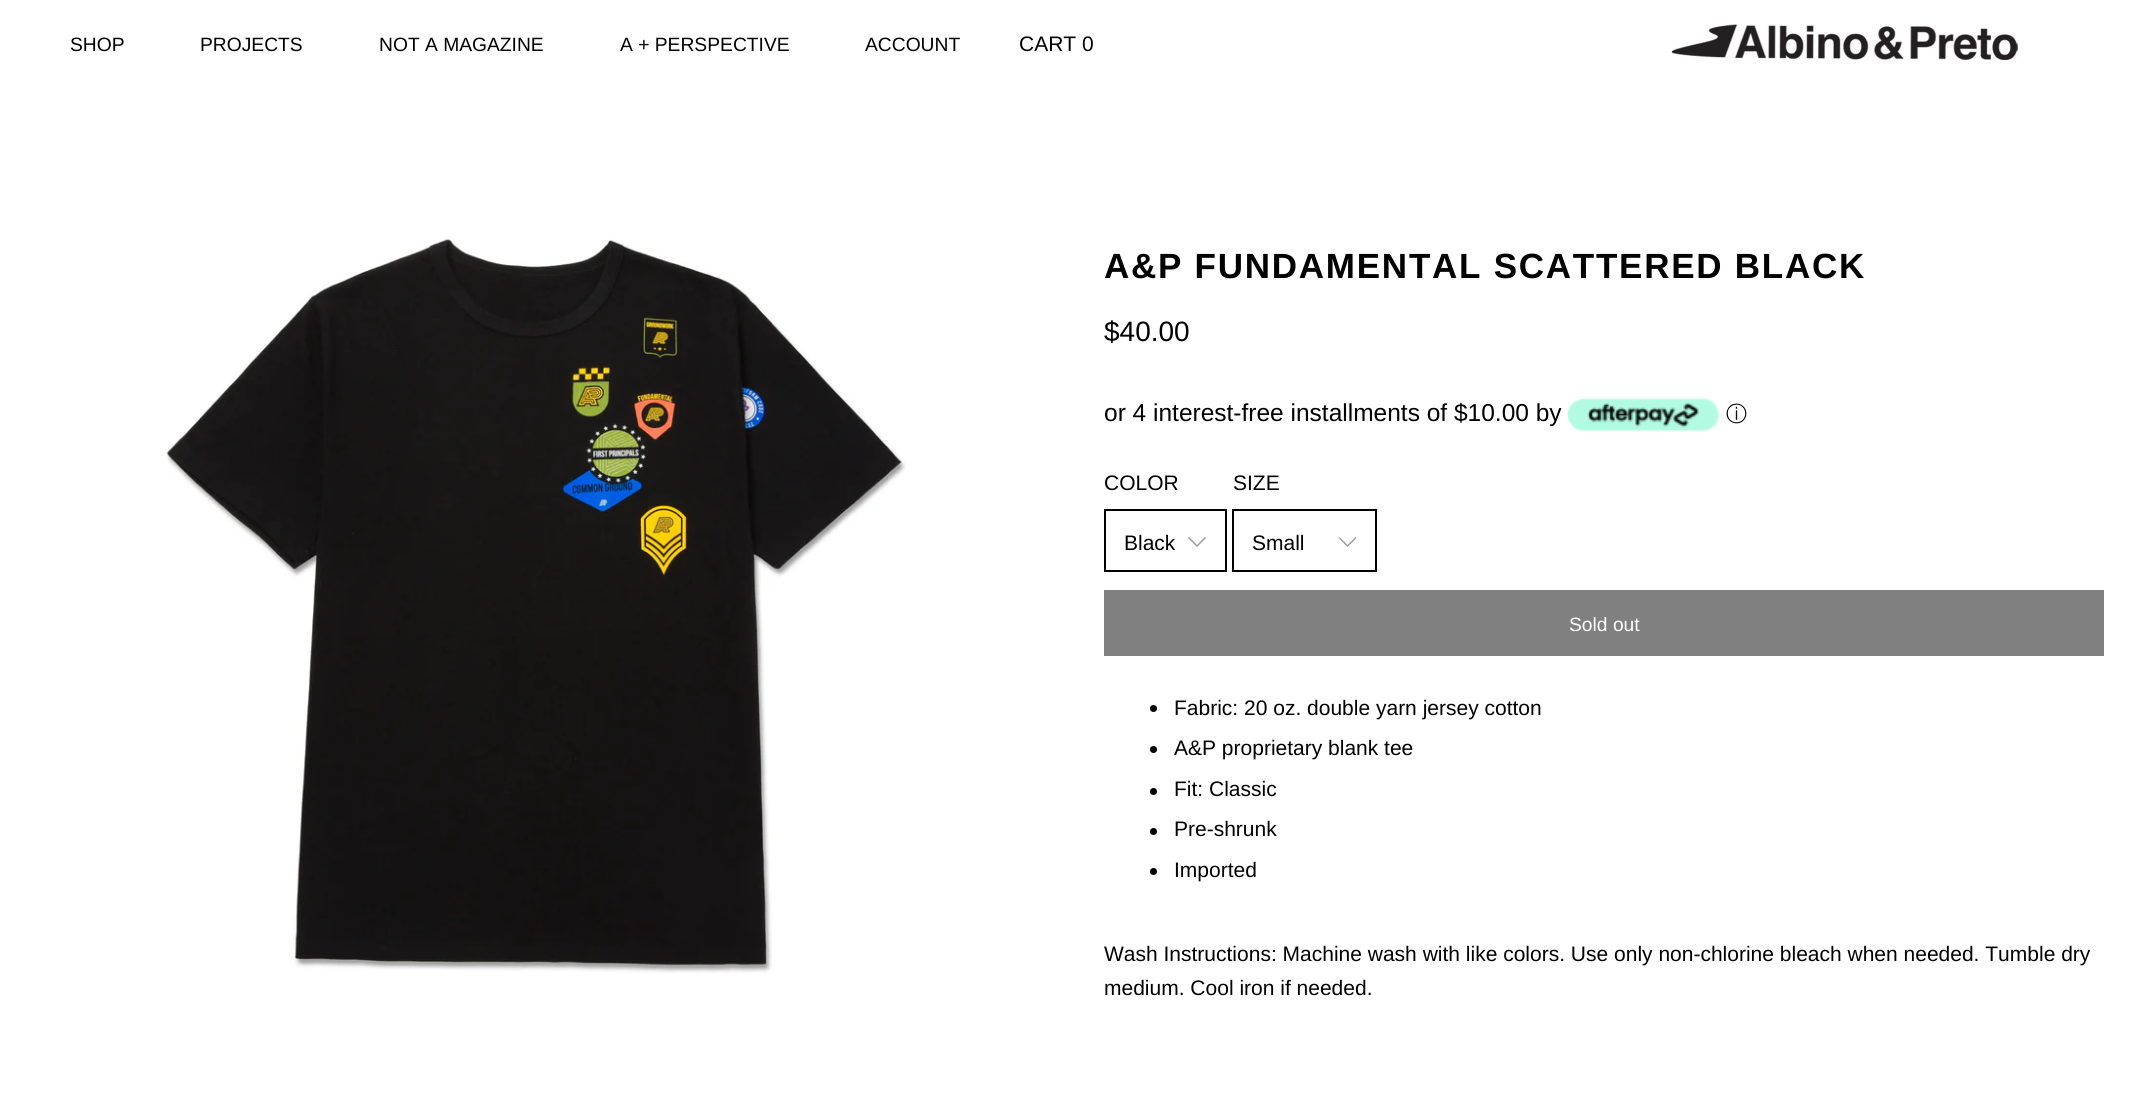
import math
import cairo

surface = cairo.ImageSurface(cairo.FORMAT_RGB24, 2137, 1109)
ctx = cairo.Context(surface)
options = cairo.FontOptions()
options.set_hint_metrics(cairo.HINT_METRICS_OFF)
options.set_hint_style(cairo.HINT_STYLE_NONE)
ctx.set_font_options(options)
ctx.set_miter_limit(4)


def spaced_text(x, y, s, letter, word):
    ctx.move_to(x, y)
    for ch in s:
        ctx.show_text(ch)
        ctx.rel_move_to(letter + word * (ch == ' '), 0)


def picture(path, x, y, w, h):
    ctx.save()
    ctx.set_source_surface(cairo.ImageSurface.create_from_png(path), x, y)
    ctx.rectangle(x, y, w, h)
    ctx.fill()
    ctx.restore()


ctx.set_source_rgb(1, 1, 1)
ctx.paint()
ctx.select_font_face("Liberation Sans")
ctx.set_font_size(19.25)
ctx.set_source_rgb(0, 0, 0)
ctx.move_to(70, 51)
ctx.show_text("SHOP")
ctx.move_to(200, 51)
ctx.show_text("PROJECTS")
ctx.move_to(379, 51)
ctx.show_text("NOT A MAGAZINE")
ctx.move_to(620, 51)
ctx.show_text("A + PERSPECTIVE")
ctx.move_to(865, 51)
ctx.show_text("ACCOUNT")
ctx.set_font_size(21)
ctx.move_to(1019, 51)
ctx.show_text("CART 0")
picture("img1.png", 1671, 24, 348, 37)
picture("img2.png", 166, 238, 740, 736)
ctx.select_font_face("Liberation Sans", cairo.FONT_SLANT_NORMAL, cairo.FONT_WEIGHT_BOLD)
ctx.set_font_size(35)
spaced_text(1104, 278, "A&P FUNDAMENTAL SCATTERED BLACK", 1.75, 0)
ctx.select_font_face("Liberation Sans")
ctx.set_font_size(28)
ctx.move_to(1104, 341)
ctx.show_text("$40.00")
ctx.set_font_size(24.5)
ctx.move_to(1104, 421)
ctx.show_text("or 4 interest-free installments of $10.00 by")
picture("img3.png", 1568, 398, 152, 34)
ctx.select_font_face("WenQuanYi Zen Hei Medium")
ctx.set_font_size(21)
ctx.move_to(1726, 421)
ctx.show_text("ⓘ")
ctx.select_font_face("Liberation Sans")
ctx.move_to(1104, 490)
ctx.show_text("COLOR")
ctx.set_source_rgb(0.6, 0.6, 0.6)
ctx.new_path()
ctx.move_to(1197, 547)
ctx.line_to(1188, 538)
ctx.line_to(1189, 537)
ctx.line_to(1197, 545)
ctx.line_to(1205, 537)
ctx.line_to(1206, 538)
ctx.close_path()
ctx.fill()
ctx.rectangle(1105, 510, 121, 61)
ctx.set_source_rgb(0, 0, 0)
ctx.stroke()
ctx.move_to(1124, 550)
ctx.show_text("Black")
ctx.move_to(1233, 490)
ctx.show_text("SIZE")
ctx.set_source_rgb(0.6, 0.6, 0.6)
ctx.new_path()
ctx.move_to(1347.5, 547)
ctx.line_to(1338.5, 538)
ctx.line_to(1339.5, 537)
ctx.line_to(1347.5, 545)
ctx.line_to(1355.5, 537)
ctx.line_to(1356.5, 538)
ctx.close_path()
ctx.fill()
ctx.rectangle(1233, 510, 143, 61)
ctx.set_source_rgb(0, 0, 0)
ctx.stroke()
ctx.move_to(1252, 550)
ctx.show_text("Small")
ctx.set_source_rgb(0.502, 0.502, 0.502)
ctx.rectangle(1104, 590, 1000, 66)
ctx.fill()
ctx.set_font_size(19.25)
ctx.set_source_rgb(1, 1, 1)
ctx.move_to(1569, 631)
ctx.show_text("Sold out")
ctx.set_source_rgb(0, 0, 0)
ctx.new_path()
ctx.arc(1153.5, 708.5, 3.5, 0, 2 * math.pi)
ctx.fill()
ctx.set_font_size(21)
ctx.move_to(1174, 715)
ctx.show_text("Fabric: 20 oz. double yarn jersey cotton")
ctx.new_path()
ctx.arc(1153.5, 749.5, 3.5, 0, 2 * math.pi)
ctx.fill()
ctx.move_to(1174, 755)
ctx.show_text("A&P proprietary blank tee")
ctx.new_path()
ctx.arc(1153.5, 791.5, 3.5, 0, 2 * math.pi)
ctx.fill()
ctx.move_to(1174, 796)
ctx.show_text("Fit: Classic")
ctx.new_path()
ctx.arc(1153.5, 831.5, 3.5, 0, 2 * math.pi)
ctx.fill()
ctx.move_to(1174, 836)
ctx.show_text("Pre-shrunk")
ctx.new_path()
ctx.arc(1153.5, 871.5, 3.5, 0, 2 * math.pi)
ctx.fill()
ctx.move_to(1174, 877)
ctx.show_text("Imported")
ctx.move_to(1104, 961)
ctx.show_text("Wash Instructions: Machine wash with like colors. Use only non-chlorine bleach when needed. Tumble dry")
ctx.move_to(1104, 995)
ctx.show_text("medium. Cool iron if needed.")
surface.write_to_png("page.png")
